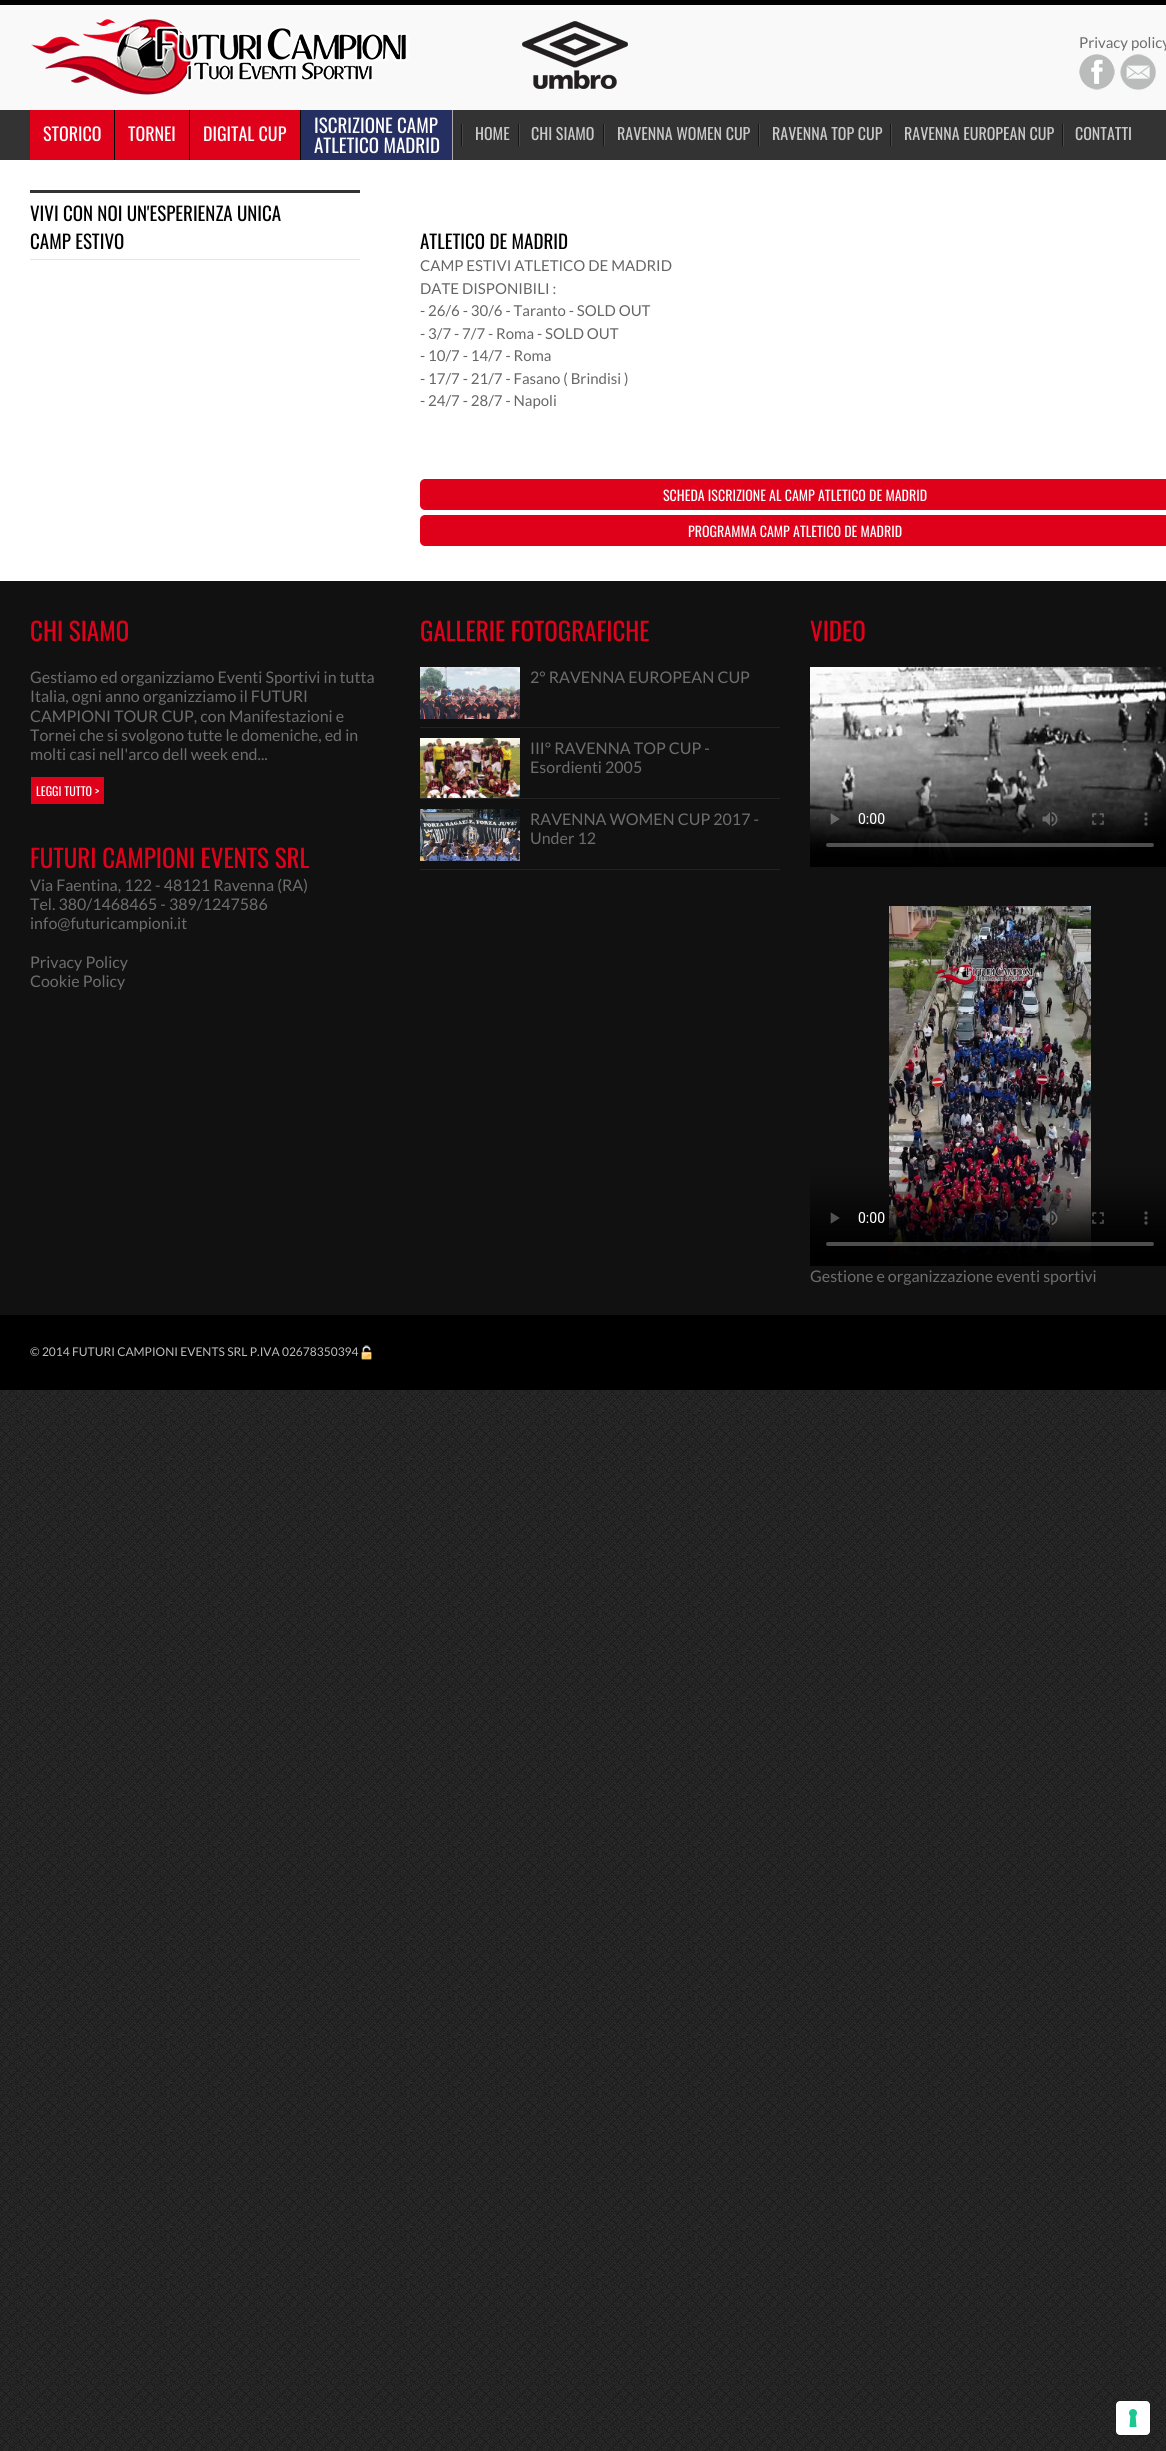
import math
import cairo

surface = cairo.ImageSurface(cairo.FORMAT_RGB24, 1166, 2451)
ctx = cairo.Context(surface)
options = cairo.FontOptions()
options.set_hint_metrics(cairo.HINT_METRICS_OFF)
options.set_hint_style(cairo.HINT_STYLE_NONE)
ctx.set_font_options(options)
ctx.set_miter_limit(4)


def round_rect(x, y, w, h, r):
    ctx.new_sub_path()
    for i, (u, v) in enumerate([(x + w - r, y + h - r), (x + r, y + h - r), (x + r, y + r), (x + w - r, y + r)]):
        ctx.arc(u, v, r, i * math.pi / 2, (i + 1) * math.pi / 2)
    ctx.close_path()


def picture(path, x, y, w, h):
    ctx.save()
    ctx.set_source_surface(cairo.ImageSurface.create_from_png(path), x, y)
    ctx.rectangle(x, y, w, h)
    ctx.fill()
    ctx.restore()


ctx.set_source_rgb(1, 1, 1)
ctx.paint()
picture("img1.png", 0, 1390, 1166, 1061)
ctx.set_source_rgb(0.976, 0.976, 0.976)
ctx.rectangle(0, 5, 1166, 105)
ctx.fill()
ctx.set_source_rgb(0, 0, 0)
ctx.rectangle(0, 0, 1166, 5)
ctx.fill()
picture("img2.png", 31, 19, 597, 76)
ctx.select_font_face("Lato")
ctx.set_font_size(15)
ctx.set_source_rgb(0.427, 0.427, 0.427)
ctx.move_to(1079, 48)
ctx.show_text("Privacy policy")
picture("img3.png", 1079, 54, 36, 36)
picture("img4.png", 1120, 54, 36, 36)
ctx.set_source_rgb(0.2, 0.2, 0.2)
ctx.rectangle(0, 110, 1166, 50)
ctx.fill()
ctx.set_source_rgb(0.875, 0.004, 0.102)
ctx.rectangle(30, 110, 84, 50)
ctx.fill()
ctx.set_source_rgb(0, 0, 0)
ctx.rectangle(114, 110, 1, 50)
ctx.fill()
ctx.select_font_face("Oswald")
ctx.set_font_size(18)
ctx.set_source_rgb(1, 1, 1)
ctx.move_to(43, 141)
ctx.show_text("STORICO")
ctx.set_source_rgb(0.875, 0.004, 0.102)
ctx.rectangle(115, 110, 74, 50)
ctx.fill()
ctx.set_source_rgb(0, 0, 0)
ctx.rectangle(189, 110, 1, 50)
ctx.fill()
ctx.set_source_rgb(1, 1, 1)
ctx.move_to(128, 141)
ctx.show_text("TORNEI")
ctx.set_source_rgb(0.875, 0.004, 0.102)
ctx.rectangle(190, 110, 110, 50)
ctx.fill()
ctx.set_source_rgb(0, 0, 0)
ctx.rectangle(300, 110, 1, 50)
ctx.fill()
ctx.set_source_rgb(1, 1, 1)
ctx.move_to(203, 141)
ctx.show_text("DIGITAL CUP")
ctx.set_source_rgb(0.149, 0.184, 0.38)
ctx.rectangle(301, 110, 151, 50)
ctx.fill()
ctx.set_source_rgb(0.682, 0.675, 0.675)
ctx.rectangle(452, 110, 1, 50)
ctx.fill()
ctx.set_font_size(19)
ctx.set_source_rgb(1, 1, 1)
ctx.move_to(314, 133)
ctx.show_text("ISCRIZIONE CAMP")
ctx.move_to(314, 153)
ctx.show_text("ATLETICO MADRID")
picture("img5.png", 461, 124, 2, 22)
ctx.set_font_size(16)
ctx.set_source_rgb(0.792, 0.792, 0.792)
ctx.move_to(475, 140)
ctx.show_text("HOME")
picture("img5.png", 518, 124, 2, 22)
ctx.move_to(531, 140)
ctx.show_text("CHI SIAMO")
picture("img5.png", 603, 124, 2, 22)
ctx.move_to(617, 140)
ctx.show_text("RAVENNA WOMEN CUP")
picture("img5.png", 758, 124, 2, 22)
ctx.move_to(772, 140)
ctx.show_text("RAVENNA TOP CUP")
picture("img5.png", 890, 124, 2, 22)
ctx.move_to(904, 140)
ctx.show_text("RAVENNA EUROPEAN CUP")
picture("img5.png", 1062, 124, 2, 22)
ctx.move_to(1075, 140)
ctx.show_text("CONTATTI")
ctx.set_source_rgb(0.2, 0.2, 0.2)
ctx.rectangle(30, 190, 330, 3)
ctx.fill()
ctx.set_source_rgb(0.906, 0.906, 0.906)
ctx.rectangle(30, 259, 330, 1)
ctx.fill()
ctx.set_font_size(19)
ctx.set_source_rgb(0, 0, 0)
ctx.move_to(30, 221)
ctx.show_text("VIVI CON NOI UN'ESPERIENZA UNICA")
ctx.move_to(30, 249)
ctx.show_text("CAMP ESTIVO")
ctx.move_to(420, 249)
ctx.show_text("ATLETICO DE MADRID")
ctx.select_font_face("Lato")
ctx.set_font_size(15)
ctx.set_source_rgb(0.4, 0.4, 0.4)
ctx.move_to(420, 271)
ctx.show_text("CAMP ESTIVI ATLETICO DE MADRID")
ctx.move_to(420, 294)
ctx.show_text("DATE DISPONIBILI :")
ctx.move_to(420, 316)
ctx.show_text("- 26/6 - 30/6 - Taranto - SOLD OUT")
ctx.move_to(420, 339)
ctx.show_text("- 3/7 - 7/7 - Roma - SOLD OUT")
ctx.move_to(420, 361)
ctx.show_text("- 10/7 - 14/7 - Roma")
ctx.move_to(420, 384)
ctx.show_text("- 17/7 - 21/7 - Fasano ( Brindisi )")
ctx.move_to(420, 406)
ctx.show_text("- 24/7 - 28/7 - Napoli")
ctx.set_source_rgb(0.875, 0.004, 0.102)
round_rect(420, 479, 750, 31, 5)
ctx.fill()
ctx.select_font_face("Oswald")
ctx.set_font_size(14)
ctx.set_source_rgb(1, 1, 1)
ctx.move_to(663, 501)
ctx.show_text("SCHEDA ISCRIZIONE AL CAMP ATLETICO DE MADRID")
ctx.set_source_rgb(0.875, 0.004, 0.102)
round_rect(420, 515, 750, 31, 5)
ctx.fill()
ctx.set_source_rgb(1, 1, 1)
ctx.move_to(688, 537)
ctx.show_text("PROGRAMMA CAMP ATLETICO DE MADRID")
ctx.set_source_rgb(0.067, 0.067, 0.067)
ctx.rectangle(0, 581, 1166, 734)
ctx.fill()
ctx.set_font_size(25)
ctx.set_source_rgb(0.875, 0.004, 0.102)
ctx.move_to(30, 641)
ctx.show_text("CHI SIAMO")
ctx.select_font_face("Lato")
ctx.set_font_size(16)
ctx.set_source_rgb(0.427, 0.427, 0.427)
ctx.move_to(30, 683)
ctx.show_text("Gestiamo ed organizziamo Eventi Sportivi in tutta")
ctx.move_to(30, 702)
ctx.show_text("Italia, ogni anno organizziamo il FUTURI")
ctx.move_to(30, 722)
ctx.show_text("CAMPIONI TOUR CUP, con Manifestazioni e")
ctx.move_to(30, 741)
ctx.show_text("Tornei che si svolgono tutte le domeniche, ed in")
ctx.move_to(30, 760)
ctx.show_text("molti casi nell'arco dell week end...")
ctx.set_source_rgb(0.875, 0.004, 0.102)
ctx.rectangle(31, 777, 73, 27)
ctx.fill()
ctx.select_font_face("Oswald")
ctx.set_font_size(12)
ctx.set_source_rgb(1, 1, 1)
ctx.move_to(36, 796)
ctx.show_text("LEGGI TUTTO >")
ctx.set_font_size(25)
ctx.set_source_rgb(0.875, 0.004, 0.102)
ctx.move_to(30, 868)
ctx.show_text("FUTURI CAMPIONI EVENTS SRL")
ctx.select_font_face("Lato")
ctx.set_font_size(16)
ctx.set_source_rgb(0.427, 0.427, 0.427)
ctx.move_to(30, 891)
ctx.show_text("Via Faentina, 122 - 48121 Ravenna (RA)")
ctx.move_to(30, 910)
ctx.show_text("Tel. 380/1468465 - 389/1247586")
ctx.move_to(30, 929)
ctx.show_text("info@futuricampioni.it")
ctx.move_to(30, 968)
ctx.show_text("Privacy Policy")
ctx.move_to(30, 987)
ctx.show_text("Cookie Policy")
ctx.select_font_face("Oswald")
ctx.set_font_size(25)
ctx.set_source_rgb(0.875, 0.004, 0.102)
ctx.move_to(420, 641)
ctx.show_text("GALLERIE FOTOGRAFICHE")
ctx.set_source_rgb(0.137, 0.137, 0.137)
ctx.rectangle(420, 727, 360, 1)
ctx.fill()
picture("img6.png", 420, 667, 100, 52)
ctx.select_font_face("Lato")
ctx.set_font_size(16)
ctx.set_source_rgb(0.427, 0.427, 0.427)
ctx.move_to(530, 683)
ctx.show_text("2° RAVENNA EUROPEAN CUP")
ctx.set_source_rgb(0.137, 0.137, 0.137)
ctx.rectangle(420, 798, 360, 1)
ctx.fill()
picture("img7.png", 420, 738, 100, 60)
ctx.set_source_rgb(0.427, 0.427, 0.427)
ctx.move_to(530, 754)
ctx.show_text("III° RAVENNA TOP CUP -")
ctx.move_to(530, 773)
ctx.show_text("Esordienti 2005")
ctx.set_source_rgb(0.137, 0.137, 0.137)
ctx.rectangle(420, 869, 360, 1)
ctx.fill()
picture("img8.png", 420, 809, 100, 52)
ctx.set_source_rgb(0.427, 0.427, 0.427)
ctx.move_to(530, 825)
ctx.show_text("RAVENNA WOMEN CUP 2017 -")
ctx.move_to(530, 844)
ctx.show_text("Under 12")
ctx.select_font_face("Oswald")
ctx.set_font_size(25)
ctx.set_source_rgb(0.875, 0.004, 0.102)
ctx.move_to(810, 641)
ctx.show_text("VIDEO")
picture("img9.png", 810, 667, 356, 200)
picture("img10.png", 810, 906, 356, 360)
ctx.select_font_face("Lato")
ctx.set_font_size(16)
ctx.set_source_rgb(0.427, 0.427, 0.427)
ctx.move_to(810, 1282)
ctx.show_text("Gestione e organizzazione eventi sportivi")
ctx.set_source_rgb(0, 0, 0)
ctx.rectangle(0, 1315, 1166, 75)
ctx.fill()
ctx.set_font_size(12)
ctx.set_source_rgb(0.749, 0.749, 0.749)
ctx.move_to(30, 1356)
ctx.show_text("© 2014 FUTURI CAMPIONI EVENTS SRL P.IVA 02678350394")
picture("img11.png", 361, 1345, 11, 15)
round_rect(1115.5, 2400.5, 35, 35, 4.5)
ctx.set_source_rgba(0, 0, 0, 0.15)
ctx.set_line_width(1)
ctx.stroke()
ctx.set_source_rgb(1, 1, 1)
round_rect(1116, 2401, 34, 34, 4)
ctx.fill()
picture("img12.png", 1129, 2409, 8, 18)
surface.write_to_png("page.png")
